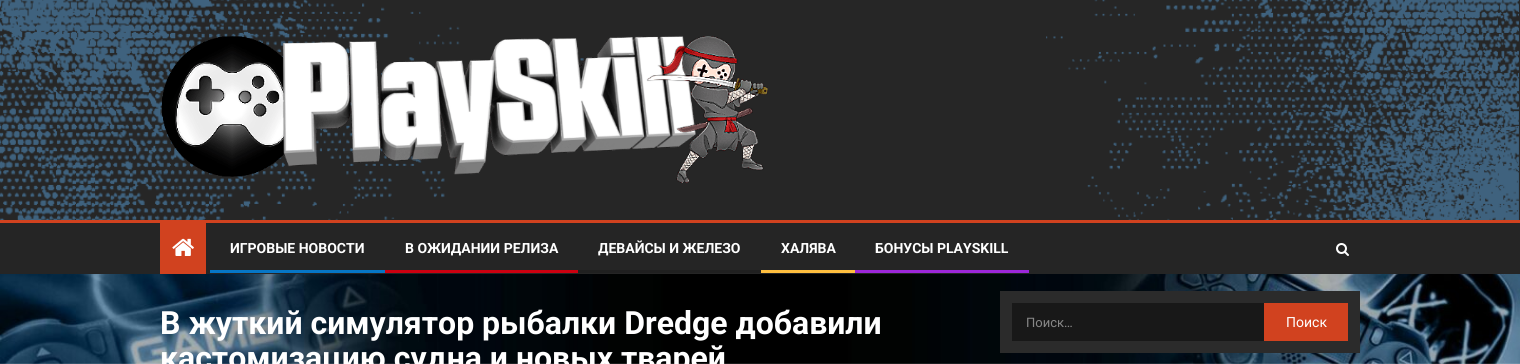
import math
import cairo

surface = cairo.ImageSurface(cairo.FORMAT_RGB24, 1520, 364)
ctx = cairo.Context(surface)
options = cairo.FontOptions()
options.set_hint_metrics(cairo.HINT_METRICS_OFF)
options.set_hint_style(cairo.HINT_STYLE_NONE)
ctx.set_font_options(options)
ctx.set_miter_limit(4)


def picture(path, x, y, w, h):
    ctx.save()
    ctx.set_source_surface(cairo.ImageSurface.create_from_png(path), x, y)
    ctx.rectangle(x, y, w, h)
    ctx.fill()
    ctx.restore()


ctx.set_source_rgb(1, 1, 1)
ctx.paint()
picture("img1.png", 0, 274, 1520, 90)
ctx.set_source_rgb(0.149, 0.149, 0.149)
ctx.rectangle(0, 0, 1520, 220)
ctx.fill()
picture("img2.png", 0, 0, 1519, 220)
picture("img3.png", 161, 35, 607, 148)
ctx.set_source_rgb(0.145, 0.145, 0.145)
ctx.rectangle(0, 223, 1520, 51)
ctx.fill()
ctx.set_source_rgb(0.82, 0.259, 0.122)
ctx.rectangle(0, 220, 1520, 3)
ctx.fill()
ctx.rectangle(160, 223, 46, 51)
ctx.fill()
picture("img4.png", 172, 238, 22, 18)
ctx.select_font_face("Roboto", cairo.FONT_SLANT_NORMAL, cairo.FONT_WEIGHT_BOLD)
ctx.set_font_size(14)
ctx.set_source_rgb(1, 1, 1)
ctx.move_to(230, 253)
ctx.show_text("ИГРОВЫЕ НОВОСТИ")
ctx.set_source_rgb(0.027, 0.463, 0.776)
ctx.rectangle(210, 270, 175, 3)
ctx.fill()
ctx.set_source_rgb(1, 1, 1)
ctx.move_to(405, 253)
ctx.show_text("В ОЖИДАНИИ РЕЛИЗА")
ctx.set_source_rgb(0.8, 0, 0.063)
ctx.rectangle(385, 270, 193, 3)
ctx.fill()
ctx.set_source_rgb(1, 1, 1)
ctx.move_to(598, 253)
ctx.show_text("ДЕВАЙСЫ И ЖЕЛЕЗО")
ctx.set_source_rgb(0.125, 0.125, 0.125)
ctx.rectangle(578, 270, 183, 3)
ctx.fill()
ctx.set_source_rgb(1, 1, 1)
ctx.move_to(781, 253)
ctx.show_text("ХАЛЯВА")
ctx.set_source_rgb(1, 0.749, 0.247)
ctx.rectangle(761, 270, 94, 3)
ctx.fill()
ctx.set_source_rgb(1, 1, 1)
ctx.move_to(875, 253)
ctx.show_text("БОНУСЫ PLAYSKILL")
ctx.set_source_rgb(0.612, 0.153, 0.851)
ctx.rectangle(855, 270, 174, 3)
ctx.fill()
picture("img5.png", 1336, 243, 13, 13)
ctx.set_font_size(32)
ctx.set_source_rgb(1, 1, 1)
ctx.move_to(160, 334)
ctx.show_text("В жуткий симулятор рыбалки Dredge добавили")
ctx.move_to(160, 369)
ctx.show_text("кастомизацию судна и новых тварей")
ctx.set_source_rgb(0.169, 0.169, 0.169)
ctx.rectangle(1000, 291, 360, 62)
ctx.fill()
ctx.set_source_rgb(0.094, 0.094, 0.094)
ctx.rectangle(1012, 303, 252, 38)
ctx.fill()
ctx.select_font_face("Roboto")
ctx.set_font_size(13)
ctx.set_source_rgb(0.533, 0.533, 0.533)
ctx.move_to(1026, 327)
ctx.show_text("Поиск…")
ctx.set_source_rgb(0.82, 0.259, 0.122)
ctx.rectangle(1264, 303, 84, 38)
ctx.fill()
ctx.set_font_size(14)
ctx.set_source_rgb(1, 1, 1)
ctx.move_to(1286, 327)
ctx.show_text("Поиск")
surface.write_to_png("page.png")
